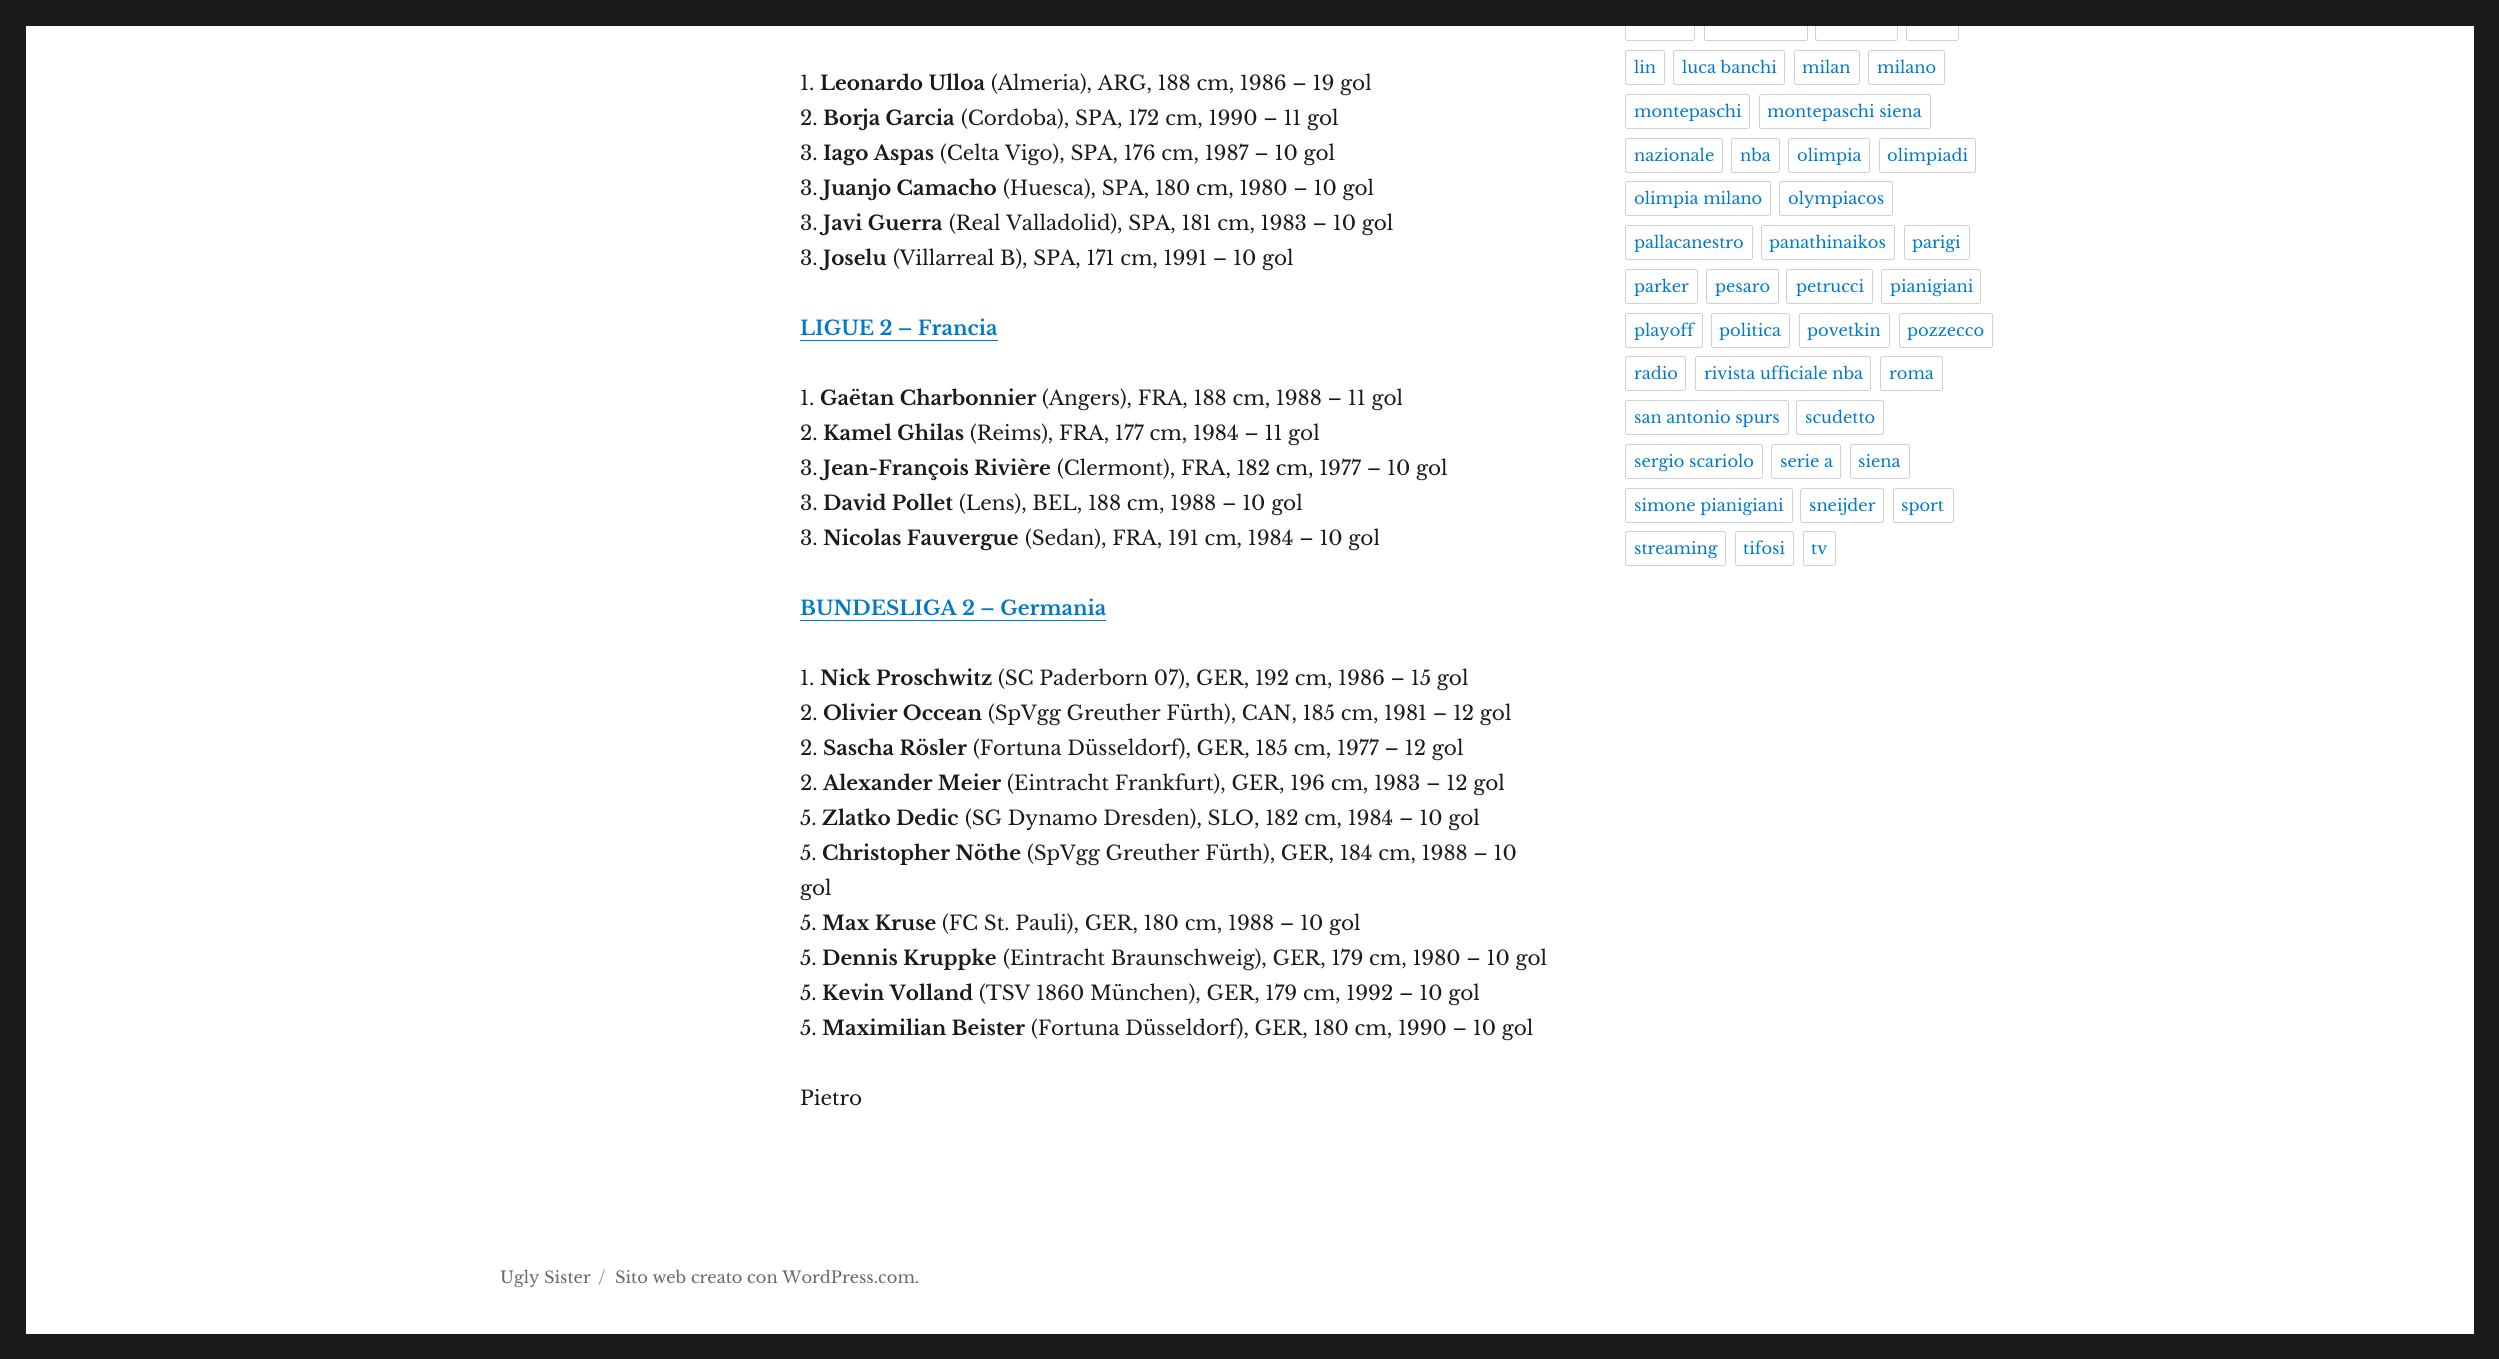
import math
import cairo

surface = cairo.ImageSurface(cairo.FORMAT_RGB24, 2499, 1359)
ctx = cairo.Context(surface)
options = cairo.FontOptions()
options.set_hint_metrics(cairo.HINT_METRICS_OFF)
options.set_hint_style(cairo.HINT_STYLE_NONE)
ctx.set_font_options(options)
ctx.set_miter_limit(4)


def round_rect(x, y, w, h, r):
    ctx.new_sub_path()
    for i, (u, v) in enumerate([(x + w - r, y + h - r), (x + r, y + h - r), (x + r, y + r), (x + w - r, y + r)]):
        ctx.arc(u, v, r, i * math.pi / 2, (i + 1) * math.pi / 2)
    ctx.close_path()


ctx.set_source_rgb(0.102, 0.102, 0.102)
ctx.paint()
ctx.set_source_rgb(1, 1, 1)
ctx.rectangle(26, 26, 2448, 1308)
ctx.fill()
round_rect(1625.5, 6.5, 69, 34, 2)
ctx.set_source_rgb(0.82, 0.82, 0.82)
ctx.set_line_width(1)
ctx.stroke()
round_rect(1704.5, 6.5, 103, 34, 2)
ctx.stroke()
round_rect(1815.5, 6.5, 82, 34, 2)
ctx.stroke()
round_rect(1906.5, 6.5, 52, 34, 2)
ctx.stroke()
ctx.set_source_rgb(0.102, 0.102, 0.102)
ctx.rectangle(1625, 6, 334, 20)
ctx.fill()
ctx.select_font_face("Libre Baskerville")
ctx.set_font_size(20)
ctx.move_to(800, 90)
ctx.show_text("1.")
ctx.select_font_face("Libre Baskerville", cairo.FONT_SLANT_NORMAL, cairo.FONT_WEIGHT_BOLD)
ctx.move_to(820, 90)
ctx.show_text("Leonardo Ulloa")
ctx.select_font_face("Libre Baskerville")
ctx.move_to(991, 90)
ctx.show_text("(Almeria), ARG, 188 cm, 1986 – 19 gol")
ctx.move_to(800, 125)
ctx.show_text("2.")
ctx.select_font_face("Libre Baskerville", cairo.FONT_SLANT_NORMAL, cairo.FONT_WEIGHT_BOLD)
ctx.move_to(823, 125)
ctx.show_text("Borja Garcia")
ctx.select_font_face("Libre Baskerville")
ctx.move_to(961, 125)
ctx.show_text("(Cordoba), SPA, 172 cm, 1990 – 11 gol")
ctx.move_to(800, 160)
ctx.show_text("3.")
ctx.select_font_face("Libre Baskerville", cairo.FONT_SLANT_NORMAL, cairo.FONT_WEIGHT_BOLD)
ctx.move_to(823, 160)
ctx.show_text("Iago Aspas")
ctx.select_font_face("Libre Baskerville")
ctx.move_to(940, 160)
ctx.show_text("(Celta Vigo), SPA, 176 cm, 1987 – 10 gol")
ctx.move_to(800, 195)
ctx.show_text("3.")
ctx.select_font_face("Libre Baskerville", cairo.FONT_SLANT_NORMAL, cairo.FONT_WEIGHT_BOLD)
ctx.move_to(823, 195)
ctx.show_text("Juanjo Camacho")
ctx.select_font_face("Libre Baskerville")
ctx.move_to(1003, 195)
ctx.show_text("(Huesca), SPA, 180 cm, 1980 – 10 gol")
ctx.move_to(800, 230)
ctx.show_text("3.")
ctx.select_font_face("Libre Baskerville", cairo.FONT_SLANT_NORMAL, cairo.FONT_WEIGHT_BOLD)
ctx.move_to(823, 230)
ctx.show_text("Javi Guerra")
ctx.select_font_face("Libre Baskerville")
ctx.move_to(949, 230)
ctx.show_text("(Real Valladolid), SPA, 181 cm, 1983 – 10 gol")
ctx.move_to(800, 265)
ctx.show_text("3.")
ctx.select_font_face("Libre Baskerville", cairo.FONT_SLANT_NORMAL, cairo.FONT_WEIGHT_BOLD)
ctx.move_to(823, 265)
ctx.show_text("Joselu")
ctx.select_font_face("Libre Baskerville")
ctx.move_to(893, 265)
ctx.show_text("(Villarreal B), SPA, 171 cm, 1991 – 10 gol")
ctx.select_font_face("Libre Baskerville", cairo.FONT_SLANT_NORMAL, cairo.FONT_WEIGHT_BOLD)
ctx.set_source_rgb(0, 0.478, 0.8)
ctx.move_to(800, 335)
ctx.show_text("LIGUE 2 – Francia")
ctx.new_path()
ctx.move_to(800, 340)
ctx.line_to(800, 341)
ctx.line_to(998, 341)
ctx.line_to(998, 316)
ctx.line_to(998, 340)
ctx.close_path()
ctx.fill()
ctx.select_font_face("Libre Baskerville")
ctx.set_source_rgb(0.102, 0.102, 0.102)
ctx.move_to(800, 405)
ctx.show_text("1.")
ctx.select_font_face("Libre Baskerville", cairo.FONT_SLANT_NORMAL, cairo.FONT_WEIGHT_BOLD)
ctx.move_to(820, 405)
ctx.show_text("Gaëtan Charbonnier")
ctx.select_font_face("Libre Baskerville")
ctx.move_to(1042, 405)
ctx.show_text("(Angers), FRA, 188 cm, 1988 – 11 gol")
ctx.move_to(800, 440)
ctx.show_text("2.")
ctx.select_font_face("Libre Baskerville", cairo.FONT_SLANT_NORMAL, cairo.FONT_WEIGHT_BOLD)
ctx.move_to(823, 440)
ctx.show_text("Kamel Ghilas")
ctx.select_font_face("Libre Baskerville")
ctx.move_to(970, 440)
ctx.show_text("(Reims), FRA, 177 cm, 1984 – 11 gol")
ctx.move_to(800, 475)
ctx.show_text("3.")
ctx.select_font_face("Libre Baskerville", cairo.FONT_SLANT_NORMAL, cairo.FONT_WEIGHT_BOLD)
ctx.move_to(823, 475)
ctx.show_text("Jean-François Rivière")
ctx.select_font_face("Libre Baskerville")
ctx.move_to(1057, 475)
ctx.show_text("(Clermont), FRA, 182 cm, 1977 – 10 gol")
ctx.move_to(800, 510)
ctx.show_text("3.")
ctx.select_font_face("Libre Baskerville", cairo.FONT_SLANT_NORMAL, cairo.FONT_WEIGHT_BOLD)
ctx.move_to(823, 510)
ctx.show_text("David Pollet")
ctx.select_font_face("Libre Baskerville")
ctx.move_to(959, 510)
ctx.show_text("(Lens), BEL, 188 cm, 1988 – 10 gol")
ctx.move_to(800, 545)
ctx.show_text("3.")
ctx.select_font_face("Libre Baskerville", cairo.FONT_SLANT_NORMAL, cairo.FONT_WEIGHT_BOLD)
ctx.move_to(823, 545)
ctx.show_text("Nicolas Fauvergue")
ctx.select_font_face("Libre Baskerville")
ctx.move_to(1025, 545)
ctx.show_text("(Sedan), FRA, 191 cm, 1984 – 10 gol")
ctx.select_font_face("Libre Baskerville", cairo.FONT_SLANT_NORMAL, cairo.FONT_WEIGHT_BOLD)
ctx.set_source_rgb(0, 0.478, 0.8)
ctx.move_to(800, 615)
ctx.show_text("BUNDESLIGA 2 – Germania")
ctx.rectangle(800, 620, 306, 1)
ctx.fill()
ctx.select_font_face("Libre Baskerville")
ctx.set_source_rgb(0.102, 0.102, 0.102)
ctx.move_to(800, 685)
ctx.show_text("1.")
ctx.select_font_face("Libre Baskerville", cairo.FONT_SLANT_NORMAL, cairo.FONT_WEIGHT_BOLD)
ctx.move_to(820, 685)
ctx.show_text("Nick Proschwitz")
ctx.select_font_face("Libre Baskerville")
ctx.move_to(998, 685)
ctx.show_text("(SC Paderborn 07), GER, 192 cm, 1986 – 15 gol")
ctx.move_to(800, 720)
ctx.show_text("2.")
ctx.select_font_face("Libre Baskerville", cairo.FONT_SLANT_NORMAL, cairo.FONT_WEIGHT_BOLD)
ctx.move_to(823, 720)
ctx.show_text("Olivier Occean")
ctx.select_font_face("Libre Baskerville")
ctx.move_to(988, 720)
ctx.show_text("(SpVgg Greuther Fürth), CAN, 185 cm, 1981 – 12 gol")
ctx.move_to(800, 755)
ctx.show_text("2.")
ctx.select_font_face("Libre Baskerville", cairo.FONT_SLANT_NORMAL, cairo.FONT_WEIGHT_BOLD)
ctx.move_to(823, 755)
ctx.show_text("Sascha Rösler")
ctx.select_font_face("Libre Baskerville")
ctx.move_to(973, 755)
ctx.show_text("(Fortuna Düsseldorf), GER, 185 cm, 1977 – 12 gol")
ctx.move_to(800, 790)
ctx.show_text("2.")
ctx.select_font_face("Libre Baskerville", cairo.FONT_SLANT_NORMAL, cairo.FONT_WEIGHT_BOLD)
ctx.move_to(823, 790)
ctx.show_text("Alexander Meier")
ctx.select_font_face("Libre Baskerville")
ctx.move_to(1007, 790)
ctx.show_text("(Eintracht Frankfurt), GER, 196 cm, 1983 – 12 gol")
ctx.move_to(800, 825)
ctx.show_text("5.")
ctx.select_font_face("Libre Baskerville", cairo.FONT_SLANT_NORMAL, cairo.FONT_WEIGHT_BOLD)
ctx.move_to(822, 825)
ctx.show_text("Zlatko Dedic")
ctx.select_font_face("Libre Baskerville")
ctx.move_to(965, 825)
ctx.show_text("(SG Dynamo Dresden), SLO, 182 cm, 1984 – 10 gol")
ctx.move_to(800, 860)
ctx.show_text("5.")
ctx.select_font_face("Libre Baskerville", cairo.FONT_SLANT_NORMAL, cairo.FONT_WEIGHT_BOLD)
ctx.move_to(822, 860)
ctx.show_text("Christopher Nöthe")
ctx.select_font_face("Libre Baskerville")
ctx.move_to(1027, 860)
ctx.show_text("(SpVgg Greuther Fürth), GER, 184 cm, 1988 – 10")
ctx.move_to(800, 895)
ctx.show_text("gol")
ctx.move_to(800, 930)
ctx.show_text("5.")
ctx.select_font_face("Libre Baskerville", cairo.FONT_SLANT_NORMAL, cairo.FONT_WEIGHT_BOLD)
ctx.move_to(822, 930)
ctx.show_text("Max Kruse")
ctx.select_font_face("Libre Baskerville")
ctx.move_to(942, 930)
ctx.show_text("(FC St. Pauli), GER, 180 cm, 1988 – 10 gol")
ctx.move_to(800, 965)
ctx.show_text("5.")
ctx.select_font_face("Libre Baskerville", cairo.FONT_SLANT_NORMAL, cairo.FONT_WEIGHT_BOLD)
ctx.move_to(822, 965)
ctx.show_text("Dennis Kruppke")
ctx.select_font_face("Libre Baskerville")
ctx.move_to(1003, 965)
ctx.show_text("(Eintracht Braunschweig), GER, 179 cm, 1980 – 10 gol")
ctx.move_to(800, 1000)
ctx.show_text("5.")
ctx.select_font_face("Libre Baskerville", cairo.FONT_SLANT_NORMAL, cairo.FONT_WEIGHT_BOLD)
ctx.move_to(822, 1000)
ctx.show_text("Kevin Volland")
ctx.select_font_face("Libre Baskerville")
ctx.move_to(979, 1000)
ctx.show_text("(TSV 1860 München), GER, 179 cm, 1992 – 10 gol")
ctx.move_to(800, 1035)
ctx.show_text("5.")
ctx.select_font_face("Libre Baskerville", cairo.FONT_SLANT_NORMAL, cairo.FONT_WEIGHT_BOLD)
ctx.move_to(822, 1035)
ctx.show_text("Maximilian Beister")
ctx.select_font_face("Libre Baskerville")
ctx.move_to(1031, 1035)
ctx.show_text("(Fortuna Düsseldorf), GER, 180 cm, 1990 – 10 gol")
ctx.move_to(800, 1105)
ctx.show_text("Pietro")
round_rect(1625.5, 50.5, 39, 34, 2)
ctx.set_source_rgb(0.82, 0.82, 0.82)
ctx.stroke()
ctx.set_font_size(16.25)
ctx.set_source_rgb(0, 0.478, 0.8)
ctx.move_to(1634, 73)
ctx.show_text("lin")
round_rect(1673.5, 50.5, 111, 34, 2)
ctx.set_source_rgb(0.82, 0.82, 0.82)
ctx.stroke()
ctx.set_source_rgb(0, 0.478, 0.8)
ctx.move_to(1682, 73)
ctx.show_text("luca banchi")
round_rect(1794.5, 50.5, 65, 34, 2)
ctx.set_source_rgb(0.82, 0.82, 0.82)
ctx.stroke()
ctx.set_source_rgb(0, 0.478, 0.8)
ctx.move_to(1802, 73)
ctx.show_text("milan")
round_rect(1868.5, 50.5, 76, 34, 2)
ctx.set_source_rgb(0.82, 0.82, 0.82)
ctx.stroke()
ctx.set_source_rgb(0, 0.478, 0.8)
ctx.move_to(1877, 73)
ctx.show_text("milano")
round_rect(1625.5, 94.5, 124, 34, 2)
ctx.set_source_rgb(0.82, 0.82, 0.82)
ctx.stroke()
ctx.set_source_rgb(0, 0.478, 0.8)
ctx.move_to(1634, 117)
ctx.show_text("montepaschi")
round_rect(1759.5, 94.5, 171, 34, 2)
ctx.set_source_rgb(0.82, 0.82, 0.82)
ctx.stroke()
ctx.set_source_rgb(0, 0.478, 0.8)
ctx.move_to(1767, 117)
ctx.show_text("montepaschi siena")
round_rect(1625.5, 138.5, 97, 34, 2)
ctx.set_source_rgb(0.82, 0.82, 0.82)
ctx.stroke()
ctx.set_source_rgb(0, 0.478, 0.8)
ctx.move_to(1634, 161)
ctx.show_text("nazionale")
round_rect(1731.5, 138.5, 48, 34, 2)
ctx.set_source_rgb(0.82, 0.82, 0.82)
ctx.stroke()
ctx.set_source_rgb(0, 0.478, 0.8)
ctx.move_to(1740, 161)
ctx.show_text("nba")
round_rect(1788.5, 138.5, 81, 34, 2)
ctx.set_source_rgb(0.82, 0.82, 0.82)
ctx.stroke()
ctx.set_source_rgb(0, 0.478, 0.8)
ctx.move_to(1797, 161)
ctx.show_text("olimpia")
round_rect(1879.5, 138.5, 96, 34, 2)
ctx.set_source_rgb(0.82, 0.82, 0.82)
ctx.stroke()
ctx.set_source_rgb(0, 0.478, 0.8)
ctx.move_to(1887, 161)
ctx.show_text("olimpiadi")
round_rect(1625.5, 181.5, 145, 34, 2)
ctx.set_source_rgb(0.82, 0.82, 0.82)
ctx.stroke()
ctx.set_source_rgb(0, 0.478, 0.8)
ctx.move_to(1634, 204)
ctx.show_text("olimpia milano")
round_rect(1779.5, 181.5, 113, 34, 2)
ctx.set_source_rgb(0.82, 0.82, 0.82)
ctx.stroke()
ctx.set_source_rgb(0, 0.478, 0.8)
ctx.move_to(1788, 204)
ctx.show_text("olympiacos")
round_rect(1625.5, 225.5, 127, 34, 2)
ctx.set_source_rgb(0.82, 0.82, 0.82)
ctx.stroke()
ctx.set_source_rgb(0, 0.478, 0.8)
ctx.move_to(1634, 248)
ctx.show_text("pallacanestro")
round_rect(1761.5, 225.5, 133, 34, 2)
ctx.set_source_rgb(0.82, 0.82, 0.82)
ctx.stroke()
ctx.set_source_rgb(0, 0.478, 0.8)
ctx.move_to(1769, 248)
ctx.show_text("panathinaikos")
round_rect(1904.5, 225.5, 65, 34, 2)
ctx.set_source_rgb(0.82, 0.82, 0.82)
ctx.stroke()
ctx.set_source_rgb(0, 0.478, 0.8)
ctx.move_to(1912, 248)
ctx.show_text("parigi")
round_rect(1625.5, 269.5, 72, 34, 2)
ctx.set_source_rgb(0.82, 0.82, 0.82)
ctx.stroke()
ctx.set_source_rgb(0, 0.478, 0.8)
ctx.move_to(1634, 292)
ctx.show_text("parker")
round_rect(1706.5, 269.5, 72, 34, 2)
ctx.set_source_rgb(0.82, 0.82, 0.82)
ctx.stroke()
ctx.set_source_rgb(0, 0.478, 0.8)
ctx.move_to(1715, 292)
ctx.show_text("pesaro")
round_rect(1786.5, 269.5, 86, 34, 2)
ctx.set_source_rgb(0.82, 0.82, 0.82)
ctx.stroke()
ctx.set_source_rgb(0, 0.478, 0.8)
ctx.move_to(1796, 292)
ctx.show_text("petrucci")
round_rect(1881.5, 269.5, 99, 34, 2)
ctx.set_source_rgb(0.82, 0.82, 0.82)
ctx.stroke()
ctx.set_source_rgb(0, 0.478, 0.8)
ctx.move_to(1890, 292)
ctx.show_text("pianigiani")
round_rect(1625.5, 313.5, 77, 34, 2)
ctx.set_source_rgb(0.82, 0.82, 0.82)
ctx.stroke()
ctx.set_source_rgb(0, 0.478, 0.8)
ctx.move_to(1634, 336)
ctx.show_text("playoff")
round_rect(1711.5, 313.5, 78, 34, 2)
ctx.set_source_rgb(0.82, 0.82, 0.82)
ctx.stroke()
ctx.set_source_rgb(0, 0.478, 0.8)
ctx.move_to(1719, 336)
ctx.show_text("politica")
round_rect(1799.5, 313.5, 90, 34, 2)
ctx.set_source_rgb(0.82, 0.82, 0.82)
ctx.stroke()
ctx.set_source_rgb(0, 0.478, 0.8)
ctx.move_to(1807, 336)
ctx.show_text("povetkin")
round_rect(1899.5, 313.5, 93, 34, 2)
ctx.set_source_rgb(0.82, 0.82, 0.82)
ctx.stroke()
ctx.set_source_rgb(0, 0.478, 0.8)
ctx.move_to(1907, 336)
ctx.show_text("pozzecco")
round_rect(1625.5, 356.5, 60, 34, 2)
ctx.set_source_rgb(0.82, 0.82, 0.82)
ctx.stroke()
ctx.set_source_rgb(0, 0.478, 0.8)
ctx.move_to(1634, 379)
ctx.show_text("radio")
round_rect(1695.5, 356.5, 175, 34, 2)
ctx.set_source_rgb(0.82, 0.82, 0.82)
ctx.stroke()
ctx.set_source_rgb(0, 0.478, 0.8)
ctx.move_to(1704, 379)
ctx.show_text("rivista ufficiale nba")
round_rect(1880.5, 356.5, 62, 34, 2)
ctx.set_source_rgb(0.82, 0.82, 0.82)
ctx.stroke()
ctx.set_source_rgb(0, 0.478, 0.8)
ctx.move_to(1889, 379)
ctx.show_text("roma")
round_rect(1625.5, 400.5, 163, 34, 2)
ctx.set_source_rgb(0.82, 0.82, 0.82)
ctx.stroke()
ctx.set_source_rgb(0, 0.478, 0.8)
ctx.move_to(1634, 423)
ctx.show_text("san antonio spurs")
round_rect(1796.5, 400.5, 87, 34, 2)
ctx.set_source_rgb(0.82, 0.82, 0.82)
ctx.stroke()
ctx.set_source_rgb(0, 0.478, 0.8)
ctx.move_to(1805, 423)
ctx.show_text("scudetto")
round_rect(1625.5, 444.5, 137, 34, 2)
ctx.set_source_rgb(0.82, 0.82, 0.82)
ctx.stroke()
ctx.set_source_rgb(0, 0.478, 0.8)
ctx.move_to(1634, 467)
ctx.show_text("sergio scariolo")
round_rect(1771.5, 444.5, 69, 34, 2)
ctx.set_source_rgb(0.82, 0.82, 0.82)
ctx.stroke()
ctx.set_source_rgb(0, 0.478, 0.8)
ctx.move_to(1780, 467)
ctx.show_text("serie a")
round_rect(1850.5, 444.5, 59, 34, 2)
ctx.set_source_rgb(0.82, 0.82, 0.82)
ctx.stroke()
ctx.set_source_rgb(0, 0.478, 0.8)
ctx.move_to(1858, 467)
ctx.show_text("siena")
round_rect(1625.5, 488.5, 167, 34, 2)
ctx.set_source_rgb(0.82, 0.82, 0.82)
ctx.stroke()
ctx.set_source_rgb(0, 0.478, 0.8)
ctx.move_to(1634, 511)
ctx.show_text("simone pianigiani")
round_rect(1800.5, 488.5, 83, 34, 2)
ctx.set_source_rgb(0.82, 0.82, 0.82)
ctx.stroke()
ctx.set_source_rgb(0, 0.478, 0.8)
ctx.move_to(1809, 511)
ctx.show_text("sneijder")
round_rect(1893.5, 488.5, 60, 34, 2)
ctx.set_source_rgb(0.82, 0.82, 0.82)
ctx.stroke()
ctx.set_source_rgb(0, 0.478, 0.8)
ctx.move_to(1901, 511)
ctx.show_text("sport")
round_rect(1625.5, 531.5, 100, 34, 2)
ctx.set_source_rgb(0.82, 0.82, 0.82)
ctx.stroke()
ctx.set_source_rgb(0, 0.478, 0.8)
ctx.move_to(1634, 554)
ctx.show_text("streaming")
round_rect(1735.5, 531.5, 58, 34, 2)
ctx.set_source_rgb(0.82, 0.82, 0.82)
ctx.stroke()
ctx.set_source_rgb(0, 0.478, 0.8)
ctx.move_to(1743, 554)
ctx.show_text("tifosi")
round_rect(1803.5, 531.5, 32, 34, 2)
ctx.set_source_rgb(0.82, 0.82, 0.82)
ctx.stroke()
ctx.set_source_rgb(0, 0.478, 0.8)
ctx.move_to(1811, 554)
ctx.show_text("tv")
ctx.set_source_rgb(0.408, 0.408, 0.408)
ctx.move_to(500, 1283)
ctx.show_text("Ugly Sister")
ctx.select_font_face("Montserrat Thin")
ctx.set_source_rgb(0.584, 0.584, 0.584)
ctx.move_to(599, 1283)
ctx.show_text("/")
ctx.select_font_face("Libre Baskerville")
ctx.set_source_rgb(0.408, 0.408, 0.408)
ctx.move_to(615, 1283)
ctx.show_text("Sito web creato con WordPress.com.")
surface.write_to_png("page.png")
